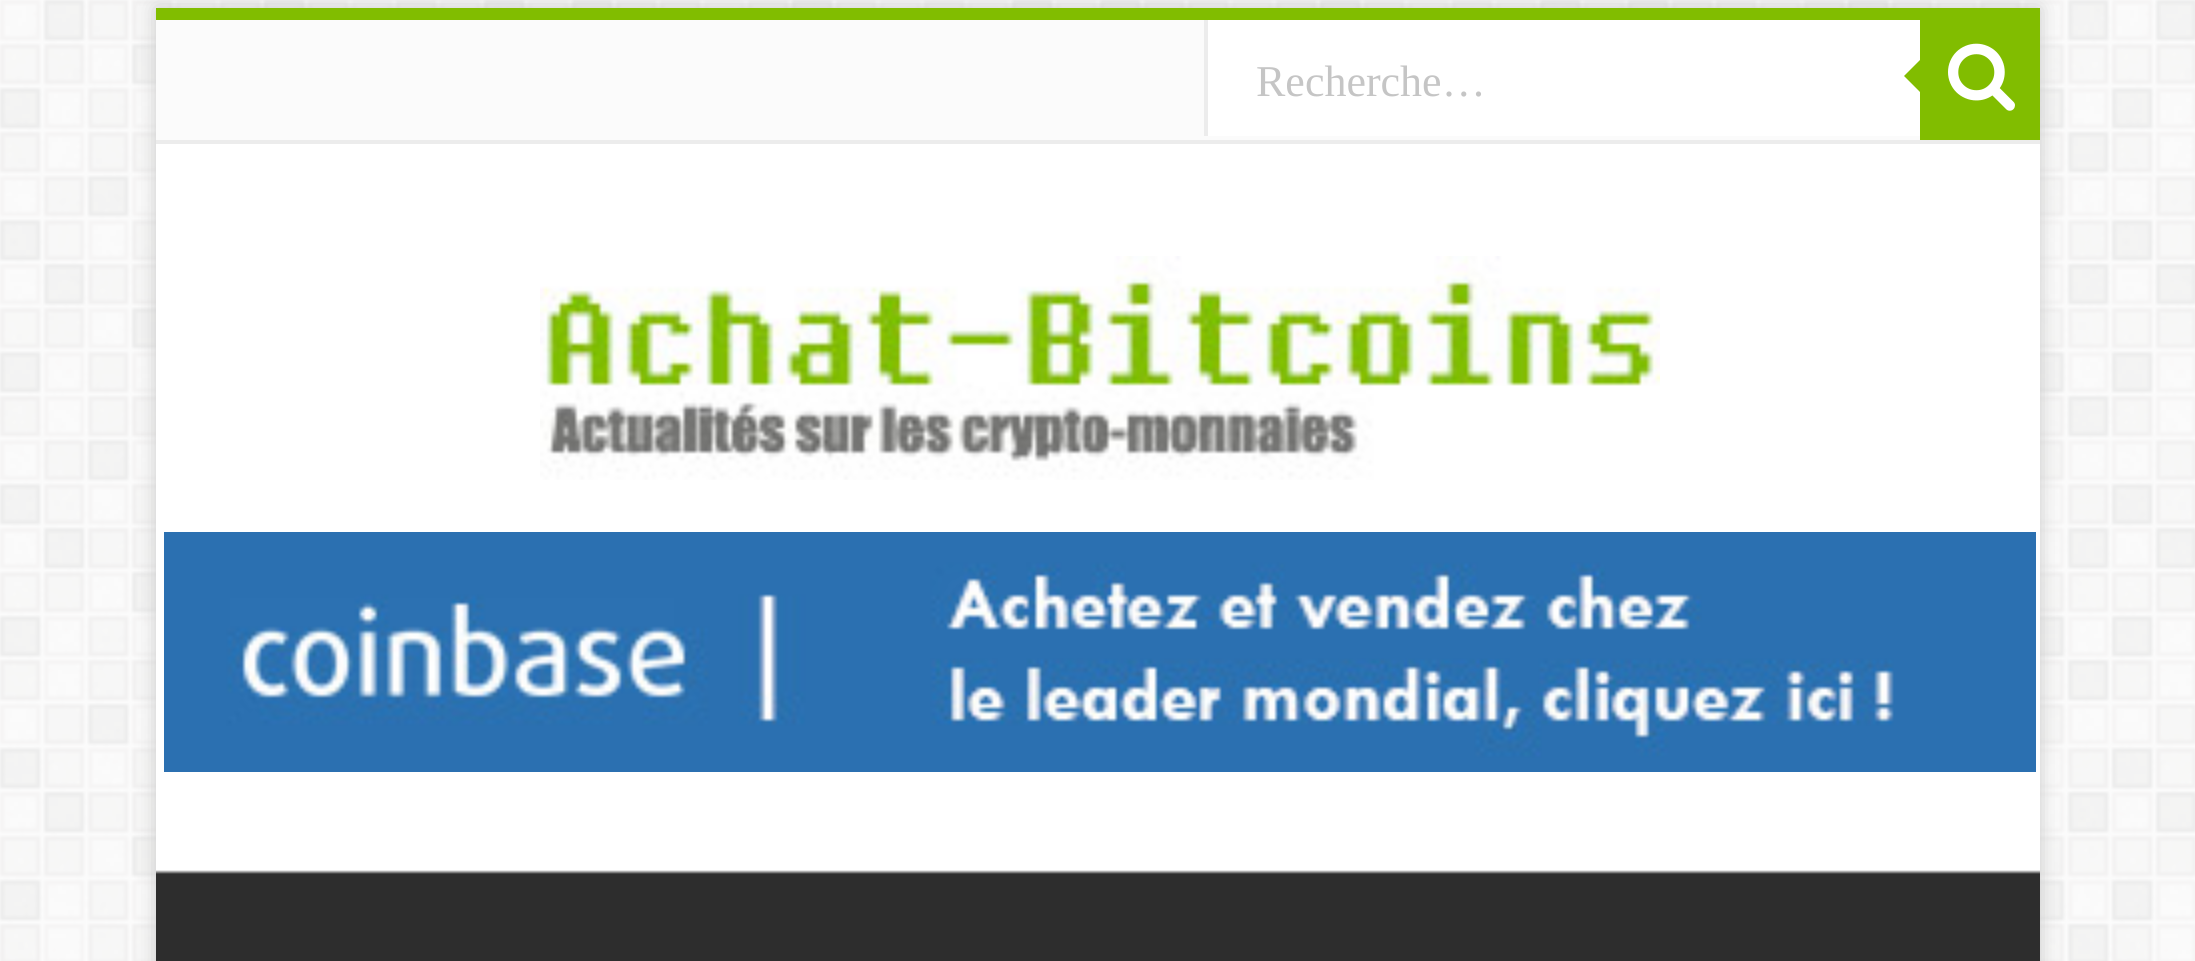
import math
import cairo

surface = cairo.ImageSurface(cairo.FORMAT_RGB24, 2195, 961)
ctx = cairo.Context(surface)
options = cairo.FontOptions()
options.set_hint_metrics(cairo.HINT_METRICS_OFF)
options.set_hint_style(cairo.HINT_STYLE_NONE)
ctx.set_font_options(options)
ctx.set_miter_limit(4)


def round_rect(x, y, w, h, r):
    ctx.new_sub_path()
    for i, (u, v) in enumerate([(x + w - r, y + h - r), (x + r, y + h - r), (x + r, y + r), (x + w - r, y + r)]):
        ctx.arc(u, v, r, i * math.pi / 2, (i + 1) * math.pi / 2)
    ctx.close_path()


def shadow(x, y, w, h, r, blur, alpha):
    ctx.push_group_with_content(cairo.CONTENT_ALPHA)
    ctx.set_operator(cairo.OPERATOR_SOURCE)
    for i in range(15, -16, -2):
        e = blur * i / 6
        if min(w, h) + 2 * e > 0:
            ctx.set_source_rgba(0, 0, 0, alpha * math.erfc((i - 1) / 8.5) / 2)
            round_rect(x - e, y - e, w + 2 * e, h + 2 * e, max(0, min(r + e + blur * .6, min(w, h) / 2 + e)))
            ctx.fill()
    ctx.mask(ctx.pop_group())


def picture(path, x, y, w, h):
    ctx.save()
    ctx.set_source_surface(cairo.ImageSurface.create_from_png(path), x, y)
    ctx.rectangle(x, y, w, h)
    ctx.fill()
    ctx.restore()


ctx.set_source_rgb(1, 1, 1)
ctx.paint()
picture("img1.png", 0, 0, 2195, 961)
ctx.set_source_rgb(0.792, 0.792, 0.792)
shadow(156, 8, 1884, 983, 0, 10, 1)
ctx.set_source_rgb(1, 1, 1)
ctx.rectangle(156, 144, 1884, 730)
ctx.fill()
ctx.set_source_rgb(0.984, 0.984, 0.984)
ctx.rectangle(156, 20, 1764, 120)
ctx.fill()
ctx.set_source_rgb(0.506, 0.741, 0)
ctx.rectangle(156, 8, 1884, 12)
ctx.fill()
ctx.set_source_rgb(0.925, 0.925, 0.925)
ctx.rectangle(156, 140, 1884, 4)
ctx.fill()
ctx.set_source_rgb(1, 1, 1)
ctx.rectangle(1208, 20, 712, 116)
ctx.fill()
ctx.set_source_rgb(0.925, 0.925, 0.925)
ctx.rectangle(1204, 20, 4, 116)
ctx.fill()
ctx.select_font_face("Liberation Serif")
ctx.set_font_size(44)
ctx.set_source_rgb(0.773, 0.773, 0.773)
ctx.move_to(1256, 96)
ctx.show_text("Recherche…")
ctx.set_source_rgb(0.506, 0.741, 0)
ctx.rectangle(1920, 20, 120, 120)
ctx.fill()
picture("img2.png", 1948, 43, 67, 68)
ctx.new_path()
ctx.move_to(1920, 60)
ctx.line_to(1920, 92)
ctx.line_to(1904, 76)
ctx.close_path()
ctx.fill()
picture("img3.png", 540, 256, 1120, 224)
picture("img4.png", 164, 532, 1872, 240)
picture("img5.png", 156, 870, 1884, 91)
surface.write_to_png("page.png")
